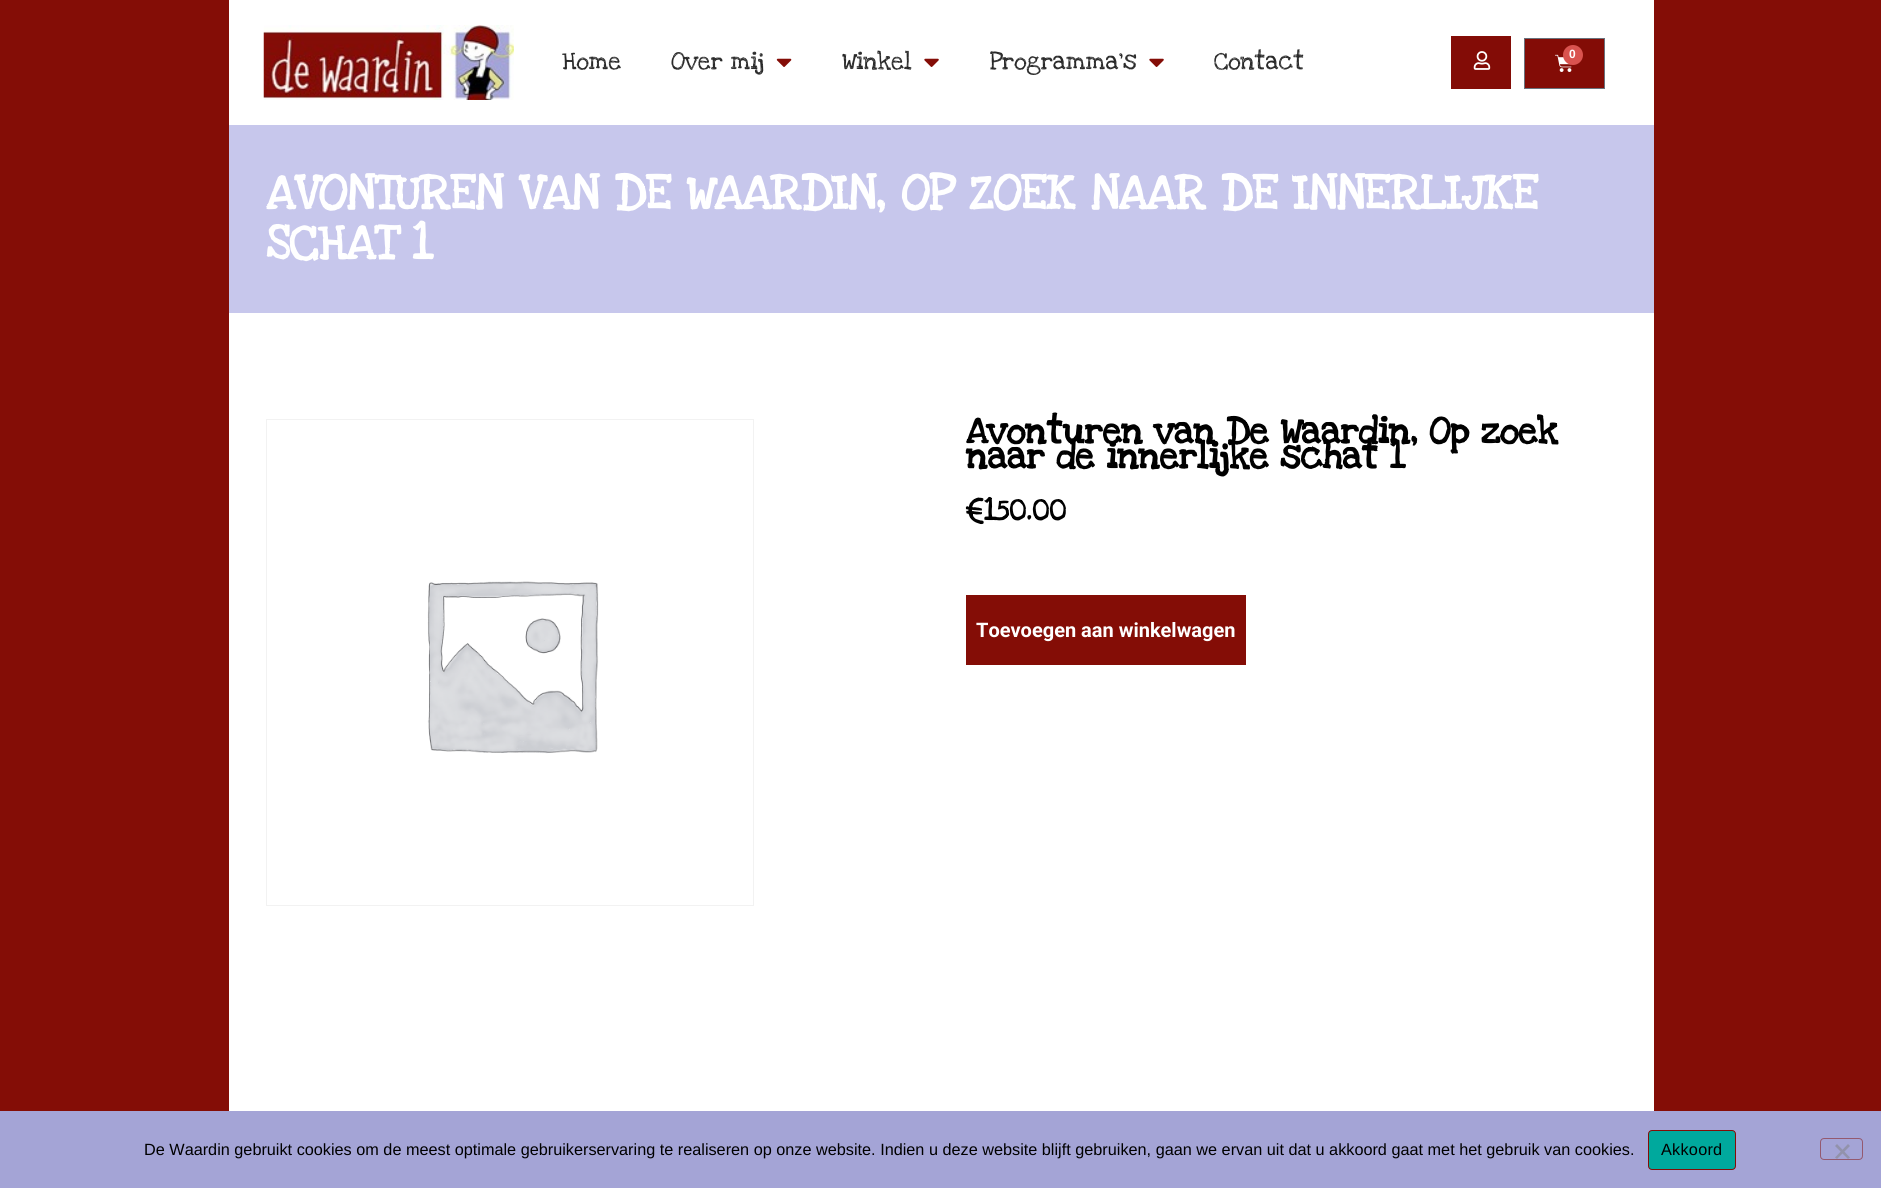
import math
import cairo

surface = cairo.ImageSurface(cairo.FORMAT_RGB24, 1881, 1188)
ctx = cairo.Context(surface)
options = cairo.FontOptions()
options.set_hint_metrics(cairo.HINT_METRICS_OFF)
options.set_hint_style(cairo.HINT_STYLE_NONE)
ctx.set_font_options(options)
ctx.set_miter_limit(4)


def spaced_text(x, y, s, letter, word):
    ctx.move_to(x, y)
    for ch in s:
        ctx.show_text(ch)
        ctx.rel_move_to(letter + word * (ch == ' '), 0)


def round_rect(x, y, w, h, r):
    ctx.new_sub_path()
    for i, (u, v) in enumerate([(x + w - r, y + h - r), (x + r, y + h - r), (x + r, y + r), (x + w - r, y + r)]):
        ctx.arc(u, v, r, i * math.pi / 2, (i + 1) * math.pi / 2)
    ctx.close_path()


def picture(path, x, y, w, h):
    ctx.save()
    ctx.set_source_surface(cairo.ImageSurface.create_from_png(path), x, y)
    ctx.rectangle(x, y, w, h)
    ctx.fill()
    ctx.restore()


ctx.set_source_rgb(0.518, 0.051, 0.027)
ctx.paint()
ctx.set_source_rgb(1, 1, 1)
ctx.rectangle(229, 0, 1425, 125)
ctx.fill()
picture("img1.png", 263, 25, 251, 75)
ctx.select_font_face("Love Ya Like A Sister")
ctx.set_font_size(25)
ctx.set_source_rgb(0.161, 0.161, 0.161)
ctx.move_to(562, 69)
ctx.show_text("Home")
ctx.move_to(671, 69)
ctx.show_text("Over mij")
picture("img2.png", 776, 58, 16, 9)
ctx.move_to(842, 69)
ctx.show_text("Winkel")
picture("img3.png", 924, 58, 15, 9)
ctx.move_to(990, 69)
ctx.show_text("Programma’s")
picture("img3.png", 1149, 58, 15, 9)
ctx.move_to(1214, 69)
ctx.show_text("Contact")
ctx.set_source_rgb(0.514, 0.047, 0.027)
ctx.rectangle(1451, 36, 60, 53)
ctx.fill()
picture("img4.png", 1473, 51, 18, 19)
ctx.rectangle(1524.5, 38.5, 80, 50)
ctx.fill_preserve()
ctx.set_source_rgb(0.412, 0.447, 0.49)
ctx.set_line_width(1)
ctx.stroke()
picture("img5.png", 1555, 54, 17, 18)
ctx.set_source_rgb(0.851, 0.325, 0.31)
ctx.arc(1573, 55, 10, 0, 2 * math.pi)
ctx.fill()
ctx.select_font_face("Liberation Sans", cairo.FONT_SLANT_NORMAL, cairo.FONT_WEIGHT_BOLD)
ctx.set_font_size(12)
ctx.set_source_rgb(1, 1, 1)
ctx.move_to(1569, 58)
ctx.show_text("0")
ctx.set_source_rgb(0.78, 0.78, 0.925)
ctx.rectangle(229, 125, 1425, 188)
ctx.fill()
ctx.select_font_face("Love Ya Like A Sister", cairo.FONT_SLANT_NORMAL, cairo.FONT_WEIGHT_BOLD)
ctx.set_font_size(50)
ctx.set_source_rgb(1, 1, 1)
ctx.move_to(266, 209)
ctx.show_text("AVONTUREN VAN DE WAARDIN, OP ZOEK NAAR DE INNERLIJKE")
ctx.move_to(266, 259)
ctx.show_text("SCHAT 1")
ctx.rectangle(229, 313, 1425, 798)
ctx.fill()
ctx.rectangle(266.5, 419.5, 487, 486)
ctx.set_source_rgb(0.949, 0.949, 0.949)
ctx.stroke()
picture("img6.png", 427, 581, 172, 173)
ctx.set_font_size(37.5)
ctx.set_source_rgb(0, 0, 0)
ctx.move_to(966, 443)
ctx.show_text("Avonturen van De Waardin, Op zoek")
ctx.move_to(966, 468)
ctx.show_text("naar de innerlijke schat 1")
ctx.set_font_size(30)
ctx.move_to(966, 520)
ctx.show_text("€150.00")
ctx.set_source_rgb(0.518, 0.051, 0.027)
ctx.rectangle(966, 595, 280, 70)
ctx.fill()
ctx.select_font_face("Roboto", cairo.FONT_SLANT_NORMAL, cairo.FONT_WEIGHT_BOLD)
ctx.set_font_size(20)
ctx.set_source_rgb(1, 1, 1)
ctx.move_to(976, 637)
ctx.show_text("Toevoegen aan winkelwagen")
ctx.set_source_rgb(0.643, 0.643, 0.839)
ctx.rectangle(0, 1111, 1881, 77)
ctx.fill()
ctx.select_font_face("Liberation Sans")
ctx.set_font_size(16.25)
ctx.set_source_rgb(0, 0, 0)
ctx.move_to(144, 1155)
ctx.show_text("De Waardin gebruikt cookies om de meest optimale gebruikerservaring te realiseren op onze website. Indien u deze website blijft gebruiken, gaan we ervan uit dat u akkoord gaat met het gebruik van cookies.")
ctx.set_source_rgb(0, 0.663, 0.616)
round_rect(1648.5, 1130.5, 87, 39, 3.5)
ctx.fill_preserve()
ctx.set_source_rgb(0.518, 0.051, 0.027)
ctx.stroke()
ctx.set_source_rgb(0, 0, 0)
spaced_text(1661, 1155, "Akkoord", 0.25, 0)
round_rect(1820.5, 1138.5, 42, 21, 3.5)
ctx.set_source_rgb(0.58, 0.349, 0.435)
ctx.stroke()
ctx.set_source_rgb(0.573, 0.573, 0.671)
ctx.new_path()
ctx.move_to(1848, 1144)
ctx.line_to(1850, 1146)
ctx.line_to(1837, 1159)
ctx.line_to(1835, 1157.5)
ctx.close_path()
ctx.fill()
ctx.new_path()
ctx.move_to(1835, 1146)
ctx.line_to(1837, 1144)
ctx.line_to(1850, 1157.5)
ctx.line_to(1848, 1159)
ctx.close_path()
ctx.fill()
surface.write_to_png("page.png")
